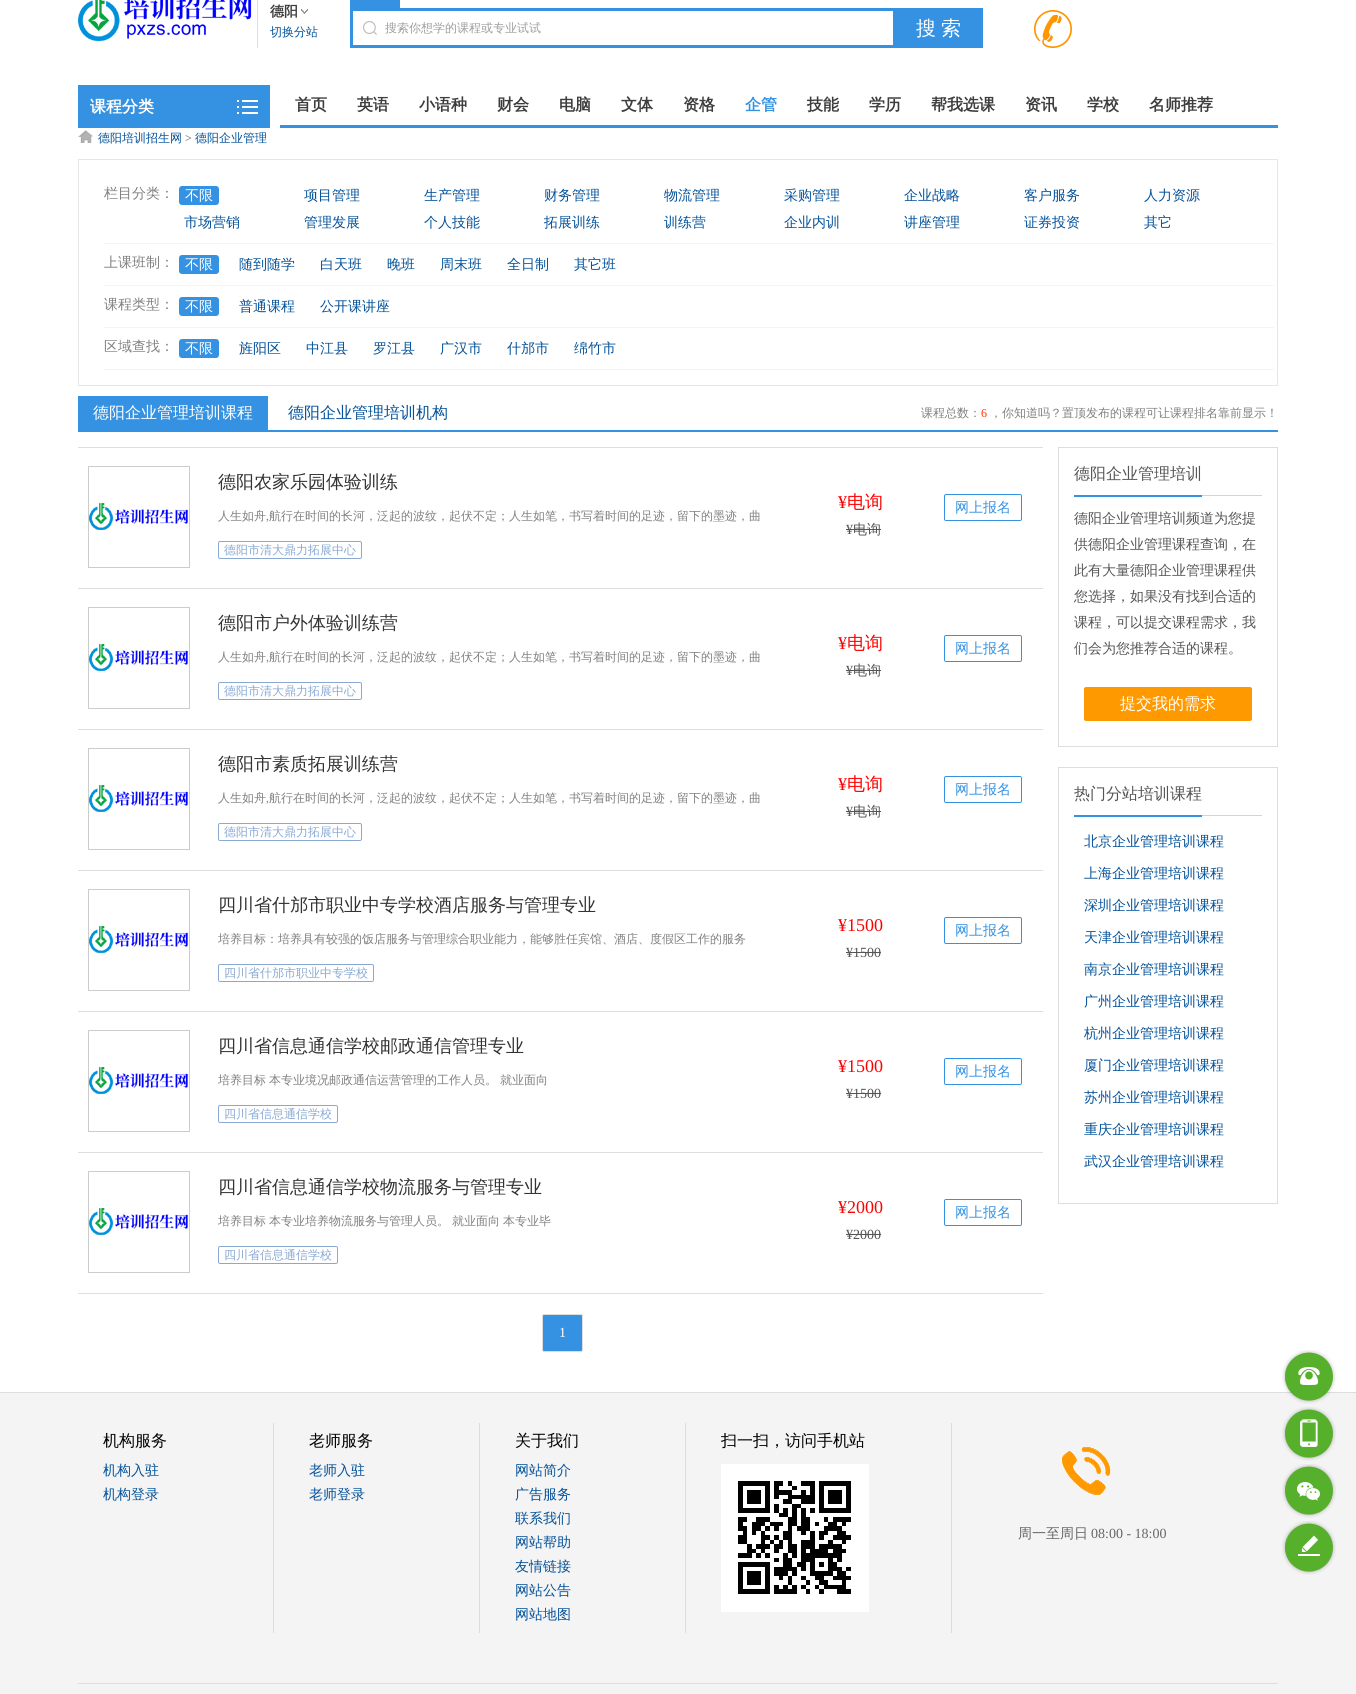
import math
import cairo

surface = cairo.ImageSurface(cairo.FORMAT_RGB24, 1356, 1694)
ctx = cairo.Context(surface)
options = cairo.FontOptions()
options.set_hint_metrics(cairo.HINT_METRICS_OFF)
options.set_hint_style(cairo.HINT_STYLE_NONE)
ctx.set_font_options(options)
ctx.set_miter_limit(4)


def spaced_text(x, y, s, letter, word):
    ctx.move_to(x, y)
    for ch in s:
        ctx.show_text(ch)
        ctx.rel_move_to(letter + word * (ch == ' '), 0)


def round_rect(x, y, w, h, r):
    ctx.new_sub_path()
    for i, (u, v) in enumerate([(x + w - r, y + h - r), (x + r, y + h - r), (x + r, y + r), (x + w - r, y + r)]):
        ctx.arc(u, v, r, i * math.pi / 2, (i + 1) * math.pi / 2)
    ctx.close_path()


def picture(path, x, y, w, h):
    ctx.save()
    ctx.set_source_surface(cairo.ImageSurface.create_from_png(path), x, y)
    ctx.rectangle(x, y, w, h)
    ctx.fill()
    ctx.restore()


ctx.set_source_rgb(1, 1, 1)
ctx.paint()
picture("img1.png", 78, 0, 174, 41)
ctx.set_source_rgb(0.867, 0.867, 0.867)
ctx.rectangle(257, 0, 1, 48)
ctx.fill()
ctx.select_font_face("WenQuanYi Zen Hei", cairo.FONT_SLANT_NORMAL, cairo.FONT_WEIGHT_BOLD)
ctx.set_font_size(14)
ctx.set_source_rgb(0.239, 0.239, 0.239)
ctx.move_to(270, 16)
ctx.show_text("德阳")
picture("img2.png", 301, 9, 7, 5)
ctx.select_font_face("WenQuanYi Zen Hei Medium")
ctx.set_font_size(12)
ctx.set_source_rgb(0.016, 0.322, 0.604)
ctx.move_to(270, 36)
ctx.show_text("切换分站")
ctx.set_source_rgb(0.208, 0.573, 0.886)
ctx.rectangle(350, 0, 50, 8)
ctx.fill()
picture("img3.png", 363, 21, 14, 14)
ctx.rectangle(350, 8, 543, 3)
ctx.fill()
ctx.rectangle(350, 45, 543, 3)
ctx.fill()
ctx.rectangle(350, 8, 3, 40)
ctx.fill()
ctx.set_source_rgb(0.616, 0.616, 0.616)
ctx.move_to(385, 32)
ctx.show_text("搜索你想学的课程或专业试试")
ctx.set_source_rgb(0.208, 0.573, 0.886)
ctx.rectangle(893, 8, 90, 40)
ctx.fill()
ctx.set_font_size(20)
ctx.set_source_rgb(1, 1, 1)
spaced_text(916, 35, "搜 索", 0, -1)
picture("img4.png", 1034, 10, 38, 38)
ctx.rectangle(79, 86, 190, 41)
ctx.set_source_rgb(0.208, 0.573, 0.886)
ctx.stroke()
ctx.rectangle(80, 87, 188, 39)
ctx.fill()
picture("img5.png", 237, 100, 21, 14)
ctx.select_font_face("WenQuanYi Zen Hei", cairo.FONT_SLANT_NORMAL, cairo.FONT_WEIGHT_BOLD)
ctx.set_font_size(16)
ctx.set_source_rgb(1, 1, 1)
ctx.move_to(90, 112)
ctx.show_text("课程分类")
ctx.set_source_rgb(0.208, 0.573, 0.886)
ctx.rectangle(280, 125, 998, 3)
ctx.fill()
ctx.set_source_rgb(0.239, 0.239, 0.239)
ctx.move_to(295, 110)
ctx.show_text("首页")
ctx.move_to(357, 110)
ctx.show_text("英语")
ctx.move_to(419, 110)
ctx.show_text("小语种")
ctx.move_to(497, 110)
ctx.show_text("财会")
ctx.move_to(559, 110)
ctx.show_text("电脑")
ctx.move_to(621, 110)
ctx.show_text("文体")
ctx.move_to(683, 110)
ctx.show_text("资格")
ctx.set_source_rgb(0.208, 0.573, 0.886)
ctx.move_to(745, 110)
ctx.show_text("企管")
ctx.set_source_rgb(0.239, 0.239, 0.239)
ctx.move_to(807, 110)
ctx.show_text("技能")
ctx.move_to(869, 110)
ctx.show_text("学历")
ctx.move_to(931, 110)
ctx.show_text("帮我选课")
ctx.move_to(1025, 110)
ctx.show_text("资讯")
ctx.move_to(1087, 110)
ctx.show_text("学校")
ctx.move_to(1149, 110)
ctx.show_text("名师推荐")
picture("img6.png", 78, 130, 15, 13)
ctx.select_font_face("WenQuanYi Zen Hei Medium")
ctx.set_font_size(12)
ctx.set_source_rgb(0.016, 0.322, 0.604)
ctx.move_to(98, 142)
ctx.show_text("德阳培训招生网")
ctx.select_font_face("Liberation Serif")
ctx.set_source_rgb(0.333, 0.333, 0.333)
ctx.move_to(185, 142)
ctx.show_text(">")
ctx.select_font_face("WenQuanYi Zen Hei Medium")
ctx.set_source_rgb(0.016, 0.322, 0.604)
ctx.move_to(195, 142)
ctx.show_text("德阳企业管理")
ctx.rectangle(78.5, 159.5, 1199, 226)
ctx.set_source_rgb(0.89, 0.906, 0.914)
ctx.set_line_width(1)
ctx.stroke()
ctx.set_source_rgb(0.957, 0.957, 0.957)
ctx.rectangle(104, 243, 1170, 1)
ctx.fill()
ctx.set_font_size(14)
ctx.set_source_rgb(0.502, 0.502, 0.502)
ctx.move_to(104, 198)
ctx.show_text("栏目分类：")
ctx.set_source_rgb(0.208, 0.573, 0.886)
round_rect(179, 186, 40, 19, 3)
ctx.fill()
ctx.set_source_rgb(1, 1, 1)
ctx.move_to(185, 200)
ctx.show_text("不限")
ctx.set_source_rgb(0.016, 0.322, 0.604)
ctx.move_to(304, 200)
ctx.show_text("项目管理")
ctx.move_to(424, 200)
ctx.show_text("生产管理")
ctx.move_to(544, 200)
ctx.show_text("财务管理")
ctx.move_to(664, 200)
ctx.show_text("物流管理")
ctx.move_to(784, 200)
ctx.show_text("采购管理")
ctx.move_to(904, 200)
ctx.show_text("企业战略")
ctx.move_to(1024, 200)
ctx.show_text("客户服务")
ctx.move_to(1144, 200)
ctx.show_text("人力资源")
ctx.move_to(184, 227)
ctx.show_text("市场营销")
ctx.move_to(304, 227)
ctx.show_text("管理发展")
ctx.move_to(424, 227)
ctx.show_text("个人技能")
ctx.move_to(544, 227)
ctx.show_text("拓展训练")
ctx.move_to(664, 227)
ctx.show_text("训练营")
ctx.move_to(784, 227)
ctx.show_text("企业内训")
ctx.move_to(904, 227)
ctx.show_text("讲座管理")
ctx.move_to(1024, 227)
ctx.show_text("证券投资")
ctx.move_to(1144, 227)
ctx.show_text("其它")
ctx.set_source_rgb(0.957, 0.957, 0.957)
ctx.rectangle(104, 285, 1170, 1)
ctx.fill()
ctx.set_source_rgb(0.502, 0.502, 0.502)
ctx.move_to(104, 267)
ctx.show_text("上课班制：")
ctx.set_source_rgb(0.208, 0.573, 0.886)
round_rect(179, 255, 40, 19, 3)
ctx.fill()
ctx.set_source_rgb(1, 1, 1)
ctx.move_to(185, 269)
ctx.show_text("不限")
ctx.set_source_rgb(0.016, 0.322, 0.604)
ctx.move_to(239, 269)
ctx.show_text("随到随学")
ctx.move_to(320, 269)
ctx.show_text("白天班")
ctx.move_to(387, 269)
ctx.show_text("晚班")
ctx.move_to(440, 269)
ctx.show_text("周末班")
ctx.move_to(507, 269)
ctx.show_text("全日制")
ctx.move_to(574, 269)
ctx.show_text("其它班")
ctx.set_source_rgb(0.957, 0.957, 0.957)
ctx.rectangle(104, 327, 1170, 1)
ctx.fill()
ctx.set_source_rgb(0.502, 0.502, 0.502)
ctx.move_to(104, 309)
ctx.show_text("课程类型：")
ctx.set_source_rgb(0.208, 0.573, 0.886)
round_rect(179, 297, 40, 19, 3)
ctx.fill()
ctx.set_source_rgb(1, 1, 1)
ctx.move_to(185, 311)
ctx.show_text("不限")
ctx.set_source_rgb(0.016, 0.322, 0.604)
ctx.move_to(239, 311)
ctx.show_text("普通课程")
ctx.move_to(320, 311)
ctx.show_text("公开课讲座")
ctx.set_source_rgb(0.957, 0.957, 0.957)
ctx.rectangle(104, 369, 1170, 1)
ctx.fill()
ctx.set_source_rgb(0.502, 0.502, 0.502)
ctx.move_to(104, 351)
ctx.show_text("区域查找：")
ctx.set_source_rgb(0.208, 0.573, 0.886)
round_rect(179, 339, 40, 19, 3)
ctx.fill()
ctx.set_source_rgb(1, 1, 1)
ctx.move_to(185, 353)
ctx.show_text("不限")
ctx.set_source_rgb(0.016, 0.322, 0.604)
ctx.move_to(239, 353)
ctx.show_text("旌阳区")
ctx.move_to(306, 353)
ctx.show_text("中江县")
ctx.move_to(373, 353)
ctx.show_text("罗江县")
ctx.move_to(440, 353)
ctx.show_text("广汉市")
ctx.move_to(507, 353)
ctx.show_text("什邡市")
ctx.move_to(574, 353)
ctx.show_text("绵竹市")
ctx.set_source_rgb(0.208, 0.573, 0.886)
ctx.rectangle(78, 430, 1200, 2)
ctx.fill()
ctx.rectangle(78, 396, 190, 34)
ctx.fill()
ctx.set_font_size(16)
ctx.set_source_rgb(1, 1, 1)
ctx.move_to(93, 418)
ctx.show_text("德阳企业管理培训课程")
ctx.set_source_rgb(0.016, 0.322, 0.604)
ctx.move_to(288, 418)
ctx.show_text("德阳企业管理培训机构")
ctx.set_font_size(12)
ctx.set_source_rgb(0.502, 0.502, 0.502)
ctx.move_to(921, 417)
ctx.show_text("课程总数：")
ctx.select_font_face("Liberation Serif")
ctx.set_source_rgb(1, 0.2, 0)
ctx.move_to(981, 417)
ctx.show_text("6")
ctx.select_font_face("WenQuanYi Zen Hei Medium")
ctx.set_source_rgb(0.502, 0.502, 0.502)
ctx.move_to(990, 417)
ctx.show_text("，你知道吗？置顶发布的课程可让课程排名靠前显示！")
ctx.set_source_rgb(0.871, 0.871, 0.871)
ctx.rectangle(78, 447, 965, 1)
ctx.fill()
ctx.rectangle(78, 588, 965, 1)
ctx.fill()
ctx.rectangle(88.5, 466.5, 101, 101)
ctx.set_source_rgb(0.8, 0.8, 0.8)
ctx.stroke()
picture("img7.png", 89, 503, 99, 27)
ctx.set_font_size(18)
ctx.set_source_rgb(0.2, 0.2, 0.2)
ctx.move_to(218, 488)
ctx.show_text("德阳农家乐园体验训练")
ctx.set_font_size(12)
ctx.set_source_rgb(0.502, 0.502, 0.502)
ctx.move_to(218, 520)
ctx.show_text("人生如舟")
ctx.select_font_face("Liberation Serif")
ctx.move_to(266, 520)
ctx.show_text(",")
ctx.select_font_face("WenQuanYi Zen Hei Medium")
ctx.move_to(269, 520)
ctx.show_text("航行在时间的长河，泛起的波纹，起伏不定；人生如笔，书写着时间的足迹，留下的墨迹，曲")
round_rect(218.5, 541.5, 143, 17, 1.5)
ctx.set_source_rgb(0.537, 0.663, 0.827)
ctx.stroke()
ctx.move_to(224, 554)
ctx.show_text("德阳市清大鼎力拓展中心")
ctx.select_font_face("Liberation Serif")
ctx.set_font_size(18)
ctx.set_source_rgb(1, 0, 0)
ctx.move_to(838, 508)
ctx.show_text("¥")
ctx.select_font_face("WenQuanYi Zen Hei Medium")
ctx.move_to(847, 508)
ctx.show_text("电询")
ctx.select_font_face("Liberation Serif")
ctx.set_font_size(14)
ctx.set_source_rgb(0.333, 0.333, 0.333)
ctx.move_to(846, 534)
ctx.show_text("¥")
ctx.rectangle(846, 529, 35, 1)
ctx.fill()
ctx.select_font_face("WenQuanYi Zen Hei Medium")
ctx.move_to(853, 534)
ctx.show_text("电询")
round_rect(944.5, 494.5, 77, 26, 1.5)
ctx.set_source_rgb(0.208, 0.573, 0.886)
ctx.stroke()
ctx.move_to(955, 512)
ctx.show_text("网上报名")
ctx.set_source_rgb(0.871, 0.871, 0.871)
ctx.rectangle(78, 729, 965, 1)
ctx.fill()
ctx.rectangle(88.5, 607.5, 101, 101)
ctx.set_source_rgb(0.8, 0.8, 0.8)
ctx.stroke()
picture("img7.png", 89, 644, 99, 27)
ctx.set_font_size(18)
ctx.set_source_rgb(0.2, 0.2, 0.2)
ctx.move_to(218, 629)
ctx.show_text("德阳市户外体验训练营")
ctx.set_font_size(12)
ctx.set_source_rgb(0.502, 0.502, 0.502)
ctx.move_to(218, 661)
ctx.show_text("人生如舟")
ctx.select_font_face("Liberation Serif")
ctx.move_to(266, 661)
ctx.show_text(",")
ctx.select_font_face("WenQuanYi Zen Hei Medium")
ctx.move_to(269, 661)
ctx.show_text("航行在时间的长河，泛起的波纹，起伏不定；人生如笔，书写着时间的足迹，留下的墨迹，曲")
round_rect(218.5, 682.5, 143, 17, 1.5)
ctx.set_source_rgb(0.537, 0.663, 0.827)
ctx.stroke()
ctx.move_to(224, 695)
ctx.show_text("德阳市清大鼎力拓展中心")
ctx.select_font_face("Liberation Serif")
ctx.set_font_size(18)
ctx.set_source_rgb(1, 0, 0)
ctx.move_to(838, 649)
ctx.show_text("¥")
ctx.select_font_face("WenQuanYi Zen Hei Medium")
ctx.move_to(847, 649)
ctx.show_text("电询")
ctx.select_font_face("Liberation Serif")
ctx.set_font_size(14)
ctx.set_source_rgb(0.333, 0.333, 0.333)
ctx.move_to(846, 675)
ctx.show_text("¥")
ctx.rectangle(846, 670, 35, 1)
ctx.fill()
ctx.select_font_face("WenQuanYi Zen Hei Medium")
ctx.move_to(853, 675)
ctx.show_text("电询")
round_rect(944.5, 635.5, 77, 26, 1.5)
ctx.set_source_rgb(0.208, 0.573, 0.886)
ctx.stroke()
ctx.move_to(955, 653)
ctx.show_text("网上报名")
ctx.set_source_rgb(0.871, 0.871, 0.871)
ctx.rectangle(78, 870, 965, 1)
ctx.fill()
ctx.rectangle(88.5, 748.5, 101, 101)
ctx.set_source_rgb(0.8, 0.8, 0.8)
ctx.stroke()
picture("img7.png", 89, 785, 99, 27)
ctx.set_font_size(18)
ctx.set_source_rgb(0.2, 0.2, 0.2)
ctx.move_to(218, 770)
ctx.show_text("德阳市素质拓展训练营")
ctx.set_font_size(12)
ctx.set_source_rgb(0.502, 0.502, 0.502)
ctx.move_to(218, 802)
ctx.show_text("人生如舟")
ctx.select_font_face("Liberation Serif")
ctx.move_to(266, 802)
ctx.show_text(",")
ctx.select_font_face("WenQuanYi Zen Hei Medium")
ctx.move_to(269, 802)
ctx.show_text("航行在时间的长河，泛起的波纹，起伏不定；人生如笔，书写着时间的足迹，留下的墨迹，曲")
round_rect(218.5, 823.5, 143, 17, 1.5)
ctx.set_source_rgb(0.537, 0.663, 0.827)
ctx.stroke()
ctx.move_to(224, 836)
ctx.show_text("德阳市清大鼎力拓展中心")
ctx.select_font_face("Liberation Serif")
ctx.set_font_size(18)
ctx.set_source_rgb(1, 0, 0)
ctx.move_to(838, 790)
ctx.show_text("¥")
ctx.select_font_face("WenQuanYi Zen Hei Medium")
ctx.move_to(847, 790)
ctx.show_text("电询")
ctx.select_font_face("Liberation Serif")
ctx.set_font_size(14)
ctx.set_source_rgb(0.333, 0.333, 0.333)
ctx.move_to(846, 816)
ctx.show_text("¥")
ctx.rectangle(846, 811, 35, 1)
ctx.fill()
ctx.select_font_face("WenQuanYi Zen Hei Medium")
ctx.move_to(853, 816)
ctx.show_text("电询")
round_rect(944.5, 776.5, 77, 26, 1.5)
ctx.set_source_rgb(0.208, 0.573, 0.886)
ctx.stroke()
ctx.move_to(955, 794)
ctx.show_text("网上报名")
ctx.set_source_rgb(0.871, 0.871, 0.871)
ctx.rectangle(78, 1011, 965, 1)
ctx.fill()
ctx.rectangle(88.5, 889.5, 101, 101)
ctx.set_source_rgb(0.8, 0.8, 0.8)
ctx.stroke()
picture("img7.png", 89, 926, 99, 27)
ctx.set_font_size(18)
ctx.set_source_rgb(0.2, 0.2, 0.2)
ctx.move_to(218, 911)
ctx.show_text("四川省什邡市职业中专学校酒店服务与管理专业")
ctx.set_font_size(12)
ctx.set_source_rgb(0.502, 0.502, 0.502)
ctx.move_to(218, 943)
ctx.show_text("培养目标：培养具有较强的饭店服务与管理综合职业能力，能够胜任宾馆、酒店、度假区工作的服务")
round_rect(218.5, 964.5, 155, 17, 1.5)
ctx.set_source_rgb(0.537, 0.663, 0.827)
ctx.stroke()
ctx.move_to(224, 977)
ctx.show_text("四川省什邡市职业中专学校")
ctx.select_font_face("Liberation Serif")
ctx.set_font_size(18)
ctx.set_source_rgb(1, 0, 0)
ctx.move_to(838, 931)
ctx.show_text("¥1500")
ctx.set_font_size(14)
ctx.set_source_rgb(0.333, 0.333, 0.333)
ctx.move_to(846, 957)
ctx.show_text("¥1500")
ctx.rectangle(846, 952, 35, 1)
ctx.fill()
round_rect(944.5, 917.5, 77, 26, 1.5)
ctx.set_source_rgb(0.208, 0.573, 0.886)
ctx.stroke()
ctx.select_font_face("WenQuanYi Zen Hei Medium")
ctx.move_to(955, 935)
ctx.show_text("网上报名")
ctx.set_source_rgb(0.871, 0.871, 0.871)
ctx.rectangle(78, 1152, 965, 1)
ctx.fill()
ctx.rectangle(88.5, 1030.5, 101, 101)
ctx.set_source_rgb(0.8, 0.8, 0.8)
ctx.stroke()
picture("img7.png", 89, 1067, 99, 27)
ctx.set_font_size(18)
ctx.set_source_rgb(0.2, 0.2, 0.2)
ctx.move_to(218, 1052)
ctx.show_text("四川省信息通信学校邮政通信管理专业")
ctx.set_font_size(12)
ctx.set_source_rgb(0.502, 0.502, 0.502)
ctx.move_to(218, 1084)
ctx.show_text("培养目标")
ctx.move_to(269, 1084)
ctx.show_text("本专业境况邮政通信运营管理的工作人员。")
ctx.move_to(500, 1084)
ctx.show_text("就业面向")
round_rect(218.5, 1105.5, 119, 17, 1.5)
ctx.set_source_rgb(0.537, 0.663, 0.827)
ctx.stroke()
ctx.move_to(224, 1118)
ctx.show_text("四川省信息通信学校")
ctx.select_font_face("Liberation Serif")
ctx.set_font_size(18)
ctx.set_source_rgb(1, 0, 0)
ctx.move_to(838, 1072)
ctx.show_text("¥1500")
ctx.set_font_size(14)
ctx.set_source_rgb(0.333, 0.333, 0.333)
ctx.move_to(846, 1098)
ctx.show_text("¥1500")
ctx.rectangle(846, 1093, 35, 1)
ctx.fill()
round_rect(944.5, 1058.5, 77, 26, 1.5)
ctx.set_source_rgb(0.208, 0.573, 0.886)
ctx.stroke()
ctx.select_font_face("WenQuanYi Zen Hei Medium")
ctx.move_to(955, 1076)
ctx.show_text("网上报名")
ctx.set_source_rgb(0.871, 0.871, 0.871)
ctx.rectangle(78, 1293, 965, 1)
ctx.fill()
ctx.rectangle(88.5, 1171.5, 101, 101)
ctx.set_source_rgb(0.8, 0.8, 0.8)
ctx.stroke()
picture("img7.png", 89, 1208, 99, 27)
ctx.set_font_size(18)
ctx.set_source_rgb(0.2, 0.2, 0.2)
ctx.move_to(218, 1193)
ctx.show_text("四川省信息通信学校物流服务与管理专业")
ctx.set_font_size(12)
ctx.set_source_rgb(0.502, 0.502, 0.502)
ctx.move_to(218, 1225)
ctx.show_text("培养目标")
ctx.move_to(269, 1225)
ctx.show_text("本专业培养物流服务与管理人员。")
ctx.move_to(452, 1225)
ctx.show_text("就业面向")
ctx.move_to(503, 1225)
ctx.show_text("本专业毕")
round_rect(218.5, 1246.5, 119, 17, 1.5)
ctx.set_source_rgb(0.537, 0.663, 0.827)
ctx.stroke()
ctx.move_to(224, 1259)
ctx.show_text("四川省信息通信学校")
ctx.select_font_face("Liberation Serif")
ctx.set_font_size(18)
ctx.set_source_rgb(1, 0, 0)
ctx.move_to(838, 1213)
ctx.show_text("¥2000")
ctx.set_font_size(14)
ctx.set_source_rgb(0.333, 0.333, 0.333)
ctx.move_to(846, 1239)
ctx.show_text("¥2000")
ctx.rectangle(846, 1234, 35, 1)
ctx.fill()
round_rect(944.5, 1199.5, 77, 26, 1.5)
ctx.set_source_rgb(0.208, 0.573, 0.886)
ctx.stroke()
ctx.select_font_face("WenQuanYi Zen Hei Medium")
ctx.move_to(955, 1217)
ctx.show_text("网上报名")
round_rect(542.5, 1314.5, 40, 37, 1.5)
ctx.fill_preserve()
ctx.set_source_rgb(0.867, 0.867, 0.867)
ctx.stroke()
ctx.select_font_face("Liberation Serif")
ctx.set_source_rgb(1, 1, 1)
ctx.move_to(559, 1337)
ctx.show_text("1")
ctx.rectangle(1058.5, 447.5, 219, 299)
ctx.set_source_rgb(0.867, 0.867, 0.867)
ctx.stroke()
ctx.set_source_rgb(0.831, 0.831, 0.831)
ctx.rectangle(1202, 495, 60, 1)
ctx.fill()
ctx.set_source_rgb(0.208, 0.573, 0.886)
ctx.rectangle(1074, 495, 128, 2)
ctx.fill()
ctx.select_font_face("WenQuanYi Zen Hei Medium")
ctx.set_font_size(16)
ctx.set_source_rgb(0.333, 0.333, 0.333)
ctx.move_to(1074, 479)
ctx.show_text("德阳企业管理培训")
ctx.set_font_size(14)
ctx.move_to(1074, 523)
ctx.show_text("德阳企业管理培训频道为您提")
ctx.move_to(1074, 549)
ctx.show_text("供德阳企业管理课程查询，在")
ctx.move_to(1074, 575)
ctx.show_text("此有大量德阳企业管理课程供")
ctx.move_to(1074, 601)
ctx.show_text("您选择，如果没有找到合适的")
ctx.move_to(1074, 627)
ctx.show_text("课程，可以提交课程需求，我")
ctx.move_to(1074, 653)
ctx.show_text("们会为您推荐合适的课程。")
ctx.set_source_rgb(1, 0.6, 0)
round_rect(1084, 687, 168, 34, 2)
ctx.fill()
ctx.set_font_size(16)
ctx.set_source_rgb(1, 1, 1)
ctx.move_to(1120, 709)
ctx.show_text("提交我的需求")
ctx.rectangle(1058.5, 767.5, 219, 436)
ctx.set_source_rgb(0.867, 0.867, 0.867)
ctx.stroke()
ctx.set_source_rgb(0.831, 0.831, 0.831)
ctx.rectangle(1202, 815, 60, 1)
ctx.fill()
ctx.set_source_rgb(0.208, 0.573, 0.886)
ctx.rectangle(1074, 815, 128, 2)
ctx.fill()
ctx.set_source_rgb(0.333, 0.333, 0.333)
ctx.move_to(1074, 799)
ctx.show_text("热门分站培训课程")
ctx.set_font_size(14)
ctx.set_source_rgb(0.016, 0.322, 0.604)
ctx.move_to(1084, 846)
ctx.show_text("北京企业管理培训课程")
ctx.move_to(1084, 878)
ctx.show_text("上海企业管理培训课程")
ctx.move_to(1084, 910)
ctx.show_text("深圳企业管理培训课程")
ctx.move_to(1084, 942)
ctx.show_text("天津企业管理培训课程")
ctx.move_to(1084, 974)
ctx.show_text("南京企业管理培训课程")
ctx.move_to(1084, 1006)
ctx.show_text("广州企业管理培训课程")
ctx.move_to(1084, 1038)
ctx.show_text("杭州企业管理培训课程")
ctx.move_to(1084, 1070)
ctx.show_text("厦门企业管理培训课程")
ctx.move_to(1084, 1102)
ctx.show_text("苏州企业管理培训课程")
ctx.move_to(1084, 1134)
ctx.show_text("重庆企业管理培训课程")
ctx.move_to(1084, 1166)
ctx.show_text("武汉企业管理培训课程")
ctx.set_source_rgb(0.957, 0.957, 0.957)
ctx.rectangle(0, 1393, 1356, 301)
ctx.fill()
ctx.set_source_rgb(0.867, 0.867, 0.867)
ctx.rectangle(0, 1392, 1356, 1)
ctx.fill()
ctx.rectangle(273, 1423, 1, 210)
ctx.fill()
ctx.set_font_size(16)
ctx.set_source_rgb(0, 0, 0)
ctx.move_to(103, 1446)
ctx.show_text("机构服务")
ctx.set_font_size(14)
ctx.set_source_rgb(0.016, 0.322, 0.604)
ctx.move_to(103, 1475)
ctx.show_text("机构入驻")
ctx.move_to(103, 1499)
ctx.show_text("机构登录")
ctx.set_source_rgb(0.867, 0.867, 0.867)
ctx.rectangle(479, 1423, 1, 210)
ctx.fill()
ctx.set_font_size(16)
ctx.set_source_rgb(0, 0, 0)
ctx.move_to(309, 1446)
ctx.show_text("老师服务")
ctx.set_font_size(14)
ctx.set_source_rgb(0.016, 0.322, 0.604)
ctx.move_to(309, 1475)
ctx.show_text("老师入驻")
ctx.move_to(309, 1499)
ctx.show_text("老师登录")
ctx.set_source_rgb(0.867, 0.867, 0.867)
ctx.rectangle(685, 1423, 1, 210)
ctx.fill()
ctx.set_font_size(16)
ctx.set_source_rgb(0, 0, 0)
ctx.move_to(515, 1446)
ctx.show_text("关于我们")
ctx.set_font_size(14)
ctx.set_source_rgb(0.016, 0.322, 0.604)
ctx.move_to(515, 1475)
ctx.show_text("网站简介")
ctx.move_to(515, 1499)
ctx.show_text("广告服务")
ctx.move_to(515, 1523)
ctx.show_text("联系我们")
ctx.move_to(515, 1547)
ctx.show_text("网站帮助")
ctx.move_to(515, 1571)
ctx.show_text("友情链接")
ctx.move_to(515, 1595)
ctx.show_text("网站公告")
ctx.move_to(515, 1619)
ctx.show_text("网站地图")
ctx.set_source_rgb(0.867, 0.867, 0.867)
ctx.rectangle(951, 1423, 1, 210)
ctx.fill()
ctx.set_font_size(16)
ctx.set_source_rgb(0, 0, 0)
ctx.move_to(721, 1446)
ctx.show_text("扫一扫，访问手机站")
picture("img8.png", 721, 1464, 148, 148)
picture("img9.png", 1061, 1447, 50, 48)
ctx.set_font_size(14)
ctx.set_source_rgb(0.4, 0.4, 0.4)
ctx.move_to(1018, 1538)
ctx.show_text("周一至周日")
ctx.select_font_face("Liberation Serif")
ctx.move_to(1091, 1538)
ctx.show_text("08:00 - 18:00")
ctx.set_source_rgb(0.867, 0.867, 0.867)
ctx.rectangle(78, 1683, 1200, 1)
ctx.fill()
picture("img10.png", 1282, 1350, 54, 54)
picture("img11.png", 1298, 1367, 22, 18)
picture("img12.png", 1282, 1407, 54, 54)
picture("img13.png", 1300, 1419, 18, 28)
picture("img12.png", 1282, 1464, 54, 54)
picture("img14.png", 1297, 1482, 23, 19)
picture("img12.png", 1282, 1521, 54, 54)
picture("img15.png", 1298, 1535, 22, 21)
surface.write_to_png("page.png")
